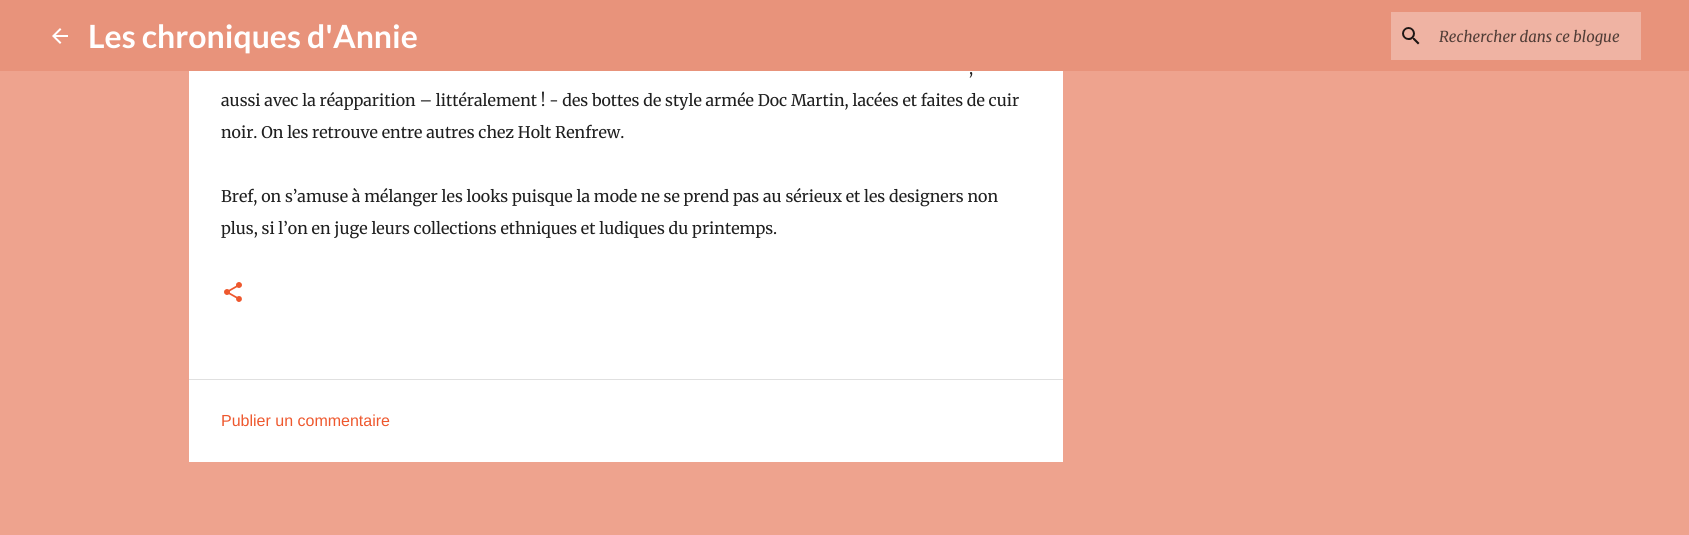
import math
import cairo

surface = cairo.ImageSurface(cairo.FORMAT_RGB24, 1689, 535)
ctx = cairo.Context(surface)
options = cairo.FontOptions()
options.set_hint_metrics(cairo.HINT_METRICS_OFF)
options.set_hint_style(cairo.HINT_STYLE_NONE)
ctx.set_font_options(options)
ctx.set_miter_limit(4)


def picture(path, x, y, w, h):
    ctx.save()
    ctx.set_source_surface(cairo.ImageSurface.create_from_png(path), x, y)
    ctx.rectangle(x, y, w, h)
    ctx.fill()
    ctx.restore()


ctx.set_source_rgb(0.933, 0.639, 0.557)
ctx.paint()
ctx.set_source_rgb(0.91, 0.576, 0.482)
ctx.rectangle(0, 0, 1689, 71)
ctx.fill()
picture("img1.png", 52, 28, 16, 16)
ctx.select_font_face("Lato", cairo.FONT_SLANT_NORMAL, cairo.FONT_WEIGHT_BOLD)
ctx.set_font_size(32)
ctx.set_source_rgb(1, 1, 1)
ctx.move_to(88, 48)
ctx.show_text("Les chroniques d'Annie")
ctx.set_source_rgb(0.937, 0.702, 0.639)
ctx.rectangle(1391, 12, 250, 48)
ctx.fill()
picture("img2.png", 1402, 27, 18, 18)
ctx.select_font_face("Merriweather", cairo.FONT_SLANT_ITALIC)
ctx.set_font_size(15)
ctx.set_source_rgb(0.318, 0.239, 0.216)
ctx.move_to(1439, 42)
ctx.show_text("Rechercher dans ce blogue")
ctx.set_source_rgb(1, 1, 1)
ctx.rectangle(189, 71, 874, 308)
ctx.fill()
ctx.select_font_face("Merriweather")
ctx.set_font_size(16)
ctx.set_source_rgb(0.122, 0.122, 0.122)
ctx.move_to(969, 74)
ctx.show_text(",")
ctx.move_to(221, 106)
ctx.show_text("aussi avec la réapparition – littéralement ! - des bottes de style armée Doc Martin, lacées et faites de cuir")
ctx.move_to(221, 138)
ctx.show_text("noir. On les retrouve entre autres chez Holt Renfrew.")
ctx.move_to(221, 202)
ctx.show_text("Bref, on s’amuse à mélanger les looks puisque la mode ne se prend pas au sérieux et les designers non")
ctx.move_to(221, 234)
ctx.show_text("plus, si l’on en juge leurs collections ethniques et ludiques du printemps.")
picture("img3.png", 224, 282, 18, 20)
ctx.set_source_rgb(1, 1, 1)
ctx.rectangle(189, 380, 874, 82)
ctx.fill()
ctx.set_source_rgb(0.878, 0.878, 0.878)
ctx.rectangle(189, 379, 874, 1)
ctx.fill()
ctx.select_font_face("Liberation Sans")
ctx.set_source_rgb(0.933, 0.345, 0.18)
ctx.move_to(221, 426)
ctx.show_text("Publier un commentaire")
surface.write_to_png("page.png")
